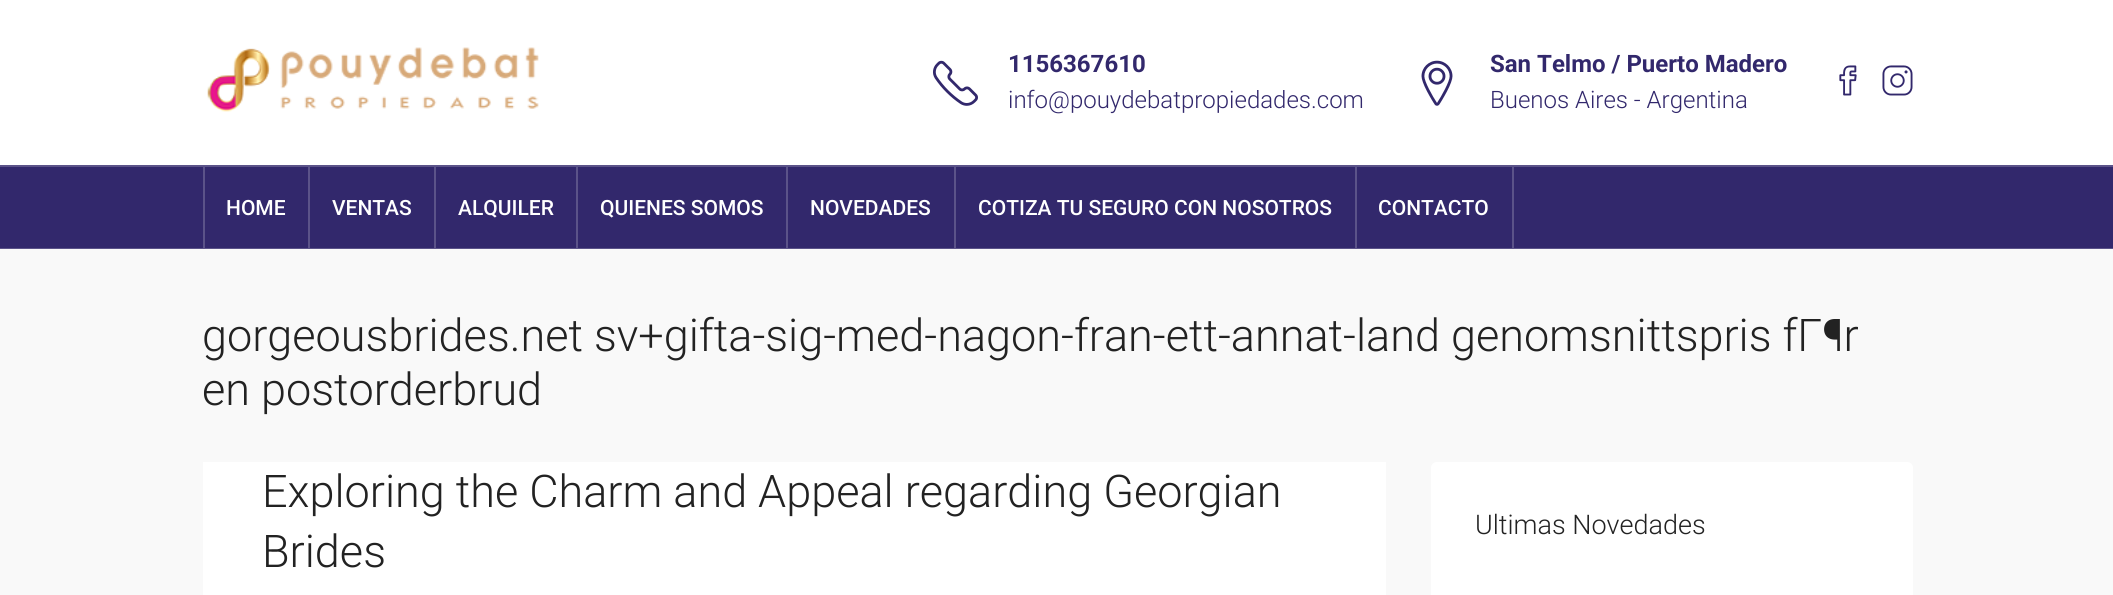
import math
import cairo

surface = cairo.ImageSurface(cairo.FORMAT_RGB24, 2113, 595)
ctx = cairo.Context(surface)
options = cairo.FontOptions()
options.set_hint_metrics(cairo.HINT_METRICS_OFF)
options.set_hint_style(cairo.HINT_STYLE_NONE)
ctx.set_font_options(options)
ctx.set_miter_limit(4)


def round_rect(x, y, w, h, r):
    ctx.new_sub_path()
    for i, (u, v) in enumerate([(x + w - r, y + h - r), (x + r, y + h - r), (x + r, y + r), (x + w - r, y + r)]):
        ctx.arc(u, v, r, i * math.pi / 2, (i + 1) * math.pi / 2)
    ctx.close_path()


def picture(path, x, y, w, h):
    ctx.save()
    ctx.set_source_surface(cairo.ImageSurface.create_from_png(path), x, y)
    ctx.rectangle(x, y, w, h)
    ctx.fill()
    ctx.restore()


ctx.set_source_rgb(0.973, 0.973, 0.973)
ctx.paint()
ctx.set_source_rgb(1, 1, 1)
ctx.rectangle(0, 0, 2113, 165)
ctx.fill()
picture("img1.png", 207, 47, 332, 65)
picture("img2.png", 933, 60, 45, 46)
ctx.select_font_face("Roboto", cairo.FONT_SLANT_NORMAL, cairo.FONT_WEIGHT_BOLD)
ctx.set_font_size(24)
ctx.set_source_rgb(0.196, 0.157, 0.424)
ctx.move_to(1008, 72)
ctx.show_text("1156367610")
ctx.select_font_face("Roboto Light")
ctx.move_to(1008, 108)
ctx.show_text("info@pouydebatpropiedades.com")
picture("img3.png", 1421, 60, 32, 46)
ctx.select_font_face("Roboto", cairo.FONT_SLANT_NORMAL, cairo.FONT_WEIGHT_BOLD)
ctx.move_to(1490, 72)
ctx.show_text("San Telmo / Puerto Madero")
ctx.select_font_face("Roboto Light")
ctx.move_to(1490, 108)
ctx.show_text("Buenos Aires - Argentina")
picture("img4.png", 1839, 65, 18, 31)
picture("img5.png", 1882, 65, 31, 31)
ctx.rectangle(0, 167, 2113, 81)
ctx.fill()
ctx.set_source_rgb(0.357, 0.325, 0.537)
ctx.rectangle(0, 248, 2113, 1)
ctx.fill()
ctx.rectangle(0, 165, 2113, 2)
ctx.fill()
ctx.rectangle(308, 167, 2, 81)
ctx.fill()
ctx.rectangle(203, 167, 2, 81)
ctx.fill()
ctx.select_font_face("Roboto Medium")
ctx.set_font_size(21)
ctx.set_source_rgb(1, 1, 1)
ctx.move_to(226, 215)
ctx.show_text("HOME")
ctx.set_source_rgb(0.357, 0.325, 0.537)
ctx.rectangle(434, 167, 2, 81)
ctx.fill()
ctx.set_source_rgb(1, 1, 1)
ctx.move_to(332, 215)
ctx.show_text("VENTAS")
ctx.set_source_rgb(0.357, 0.325, 0.537)
ctx.rectangle(576, 167, 2, 81)
ctx.fill()
ctx.set_source_rgb(1, 1, 1)
ctx.move_to(458, 215)
ctx.show_text("ALQUILER")
ctx.set_source_rgb(0.357, 0.325, 0.537)
ctx.rectangle(786, 167, 2, 81)
ctx.fill()
ctx.set_source_rgb(1, 1, 1)
ctx.move_to(600, 215)
ctx.show_text("QUIENES SOMOS")
ctx.set_source_rgb(0.357, 0.325, 0.537)
ctx.rectangle(954, 167, 2, 81)
ctx.fill()
ctx.set_source_rgb(1, 1, 1)
ctx.move_to(810, 215)
ctx.show_text("NOVEDADES")
ctx.set_source_rgb(0.357, 0.325, 0.537)
ctx.rectangle(1355, 167, 2, 81)
ctx.fill()
ctx.set_source_rgb(1, 1, 1)
ctx.move_to(978, 215)
ctx.show_text("COTIZA TU SEGURO CON NOSOTROS")
ctx.set_source_rgb(0.357, 0.325, 0.537)
ctx.rectangle(1512, 167, 2, 81)
ctx.fill()
ctx.set_source_rgb(1, 1, 1)
ctx.move_to(1378, 215)
ctx.show_text("CONTACTO")
ctx.select_font_face("Roboto Light")
ctx.set_font_size(45)
ctx.set_source_rgb(0.133, 0.133, 0.133)
ctx.move_to(202, 351)
ctx.show_text("gorgeousbrides.net sv+gifta-sig-med-nagon-fran-ett-annat-land genomsnittspris fГ¶r")
ctx.move_to(202, 405)
ctx.show_text("en postorderbrud")
ctx.set_source_rgb(1, 1, 1)
ctx.rectangle(203, 462, 1183, 133)
ctx.fill()
ctx.set_source_rgb(0.133, 0.133, 0.133)
ctx.move_to(262, 507)
ctx.show_text("Exploring the Charm and Appeal regarding Georgian")
ctx.move_to(262, 567)
ctx.show_text("Brides")
ctx.set_source_rgb(1, 1, 1)
round_rect(1431, 462, 482, 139, 6)
ctx.fill()
ctx.set_font_size(27)
ctx.set_source_rgb(0.133, 0.133, 0.133)
ctx.move_to(1475, 534)
ctx.show_text("Ultimas Novedades")
surface.write_to_png("page.png")
